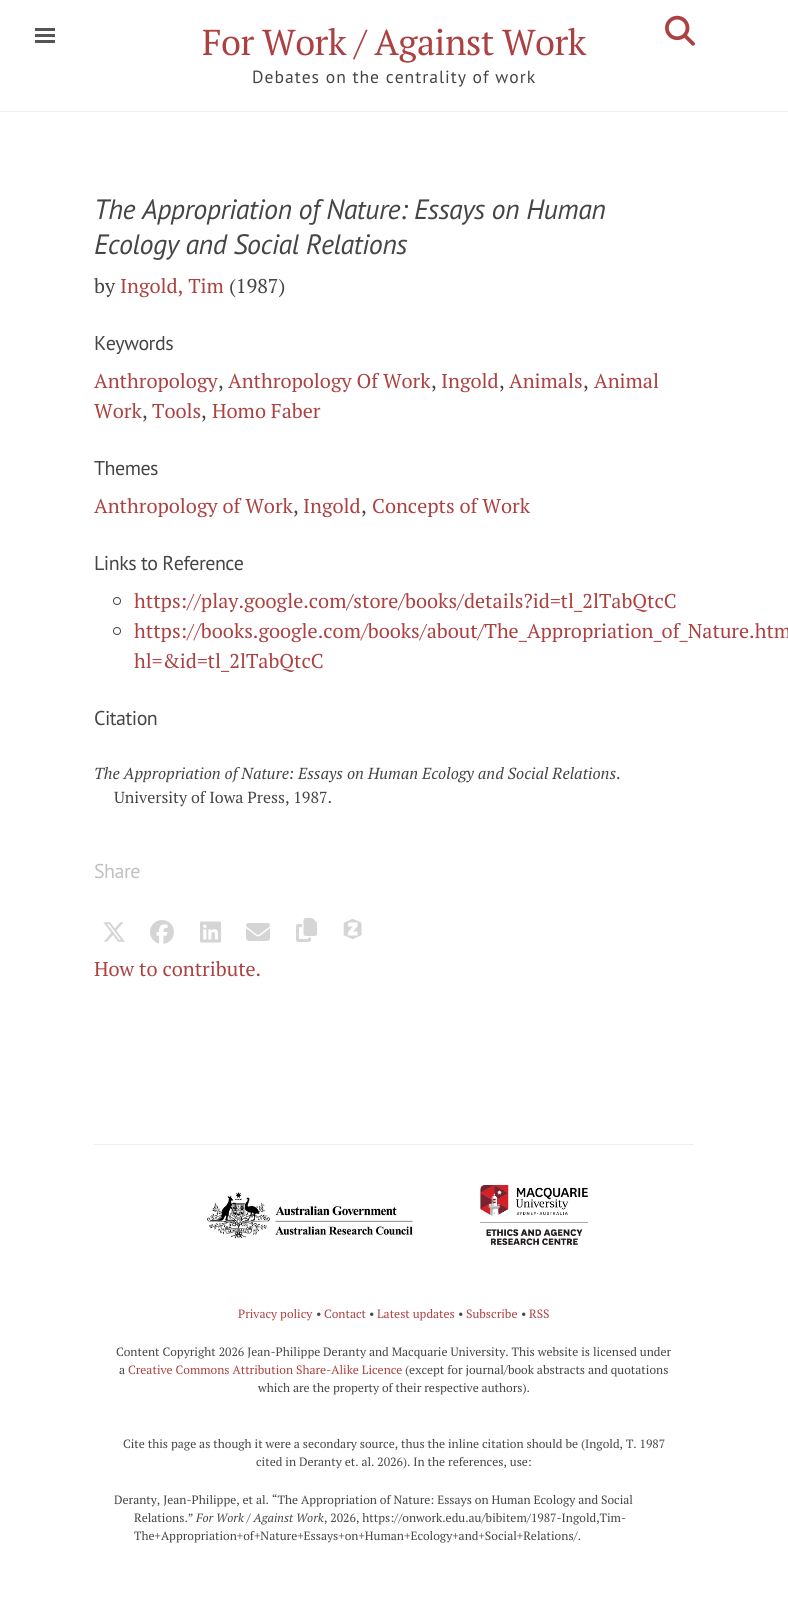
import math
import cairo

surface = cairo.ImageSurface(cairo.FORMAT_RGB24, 788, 1606)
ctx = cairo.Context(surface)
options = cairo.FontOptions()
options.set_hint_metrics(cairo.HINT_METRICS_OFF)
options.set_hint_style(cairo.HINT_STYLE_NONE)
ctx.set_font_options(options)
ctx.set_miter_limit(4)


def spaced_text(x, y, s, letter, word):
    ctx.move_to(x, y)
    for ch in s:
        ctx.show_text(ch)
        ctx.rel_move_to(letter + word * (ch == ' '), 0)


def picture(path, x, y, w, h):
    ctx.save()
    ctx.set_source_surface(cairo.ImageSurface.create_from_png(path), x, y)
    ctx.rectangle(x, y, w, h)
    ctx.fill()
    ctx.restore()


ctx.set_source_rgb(1, 1, 1)
ctx.paint()
picture("img1.png", 35, 28, 20, 15)
ctx.set_source_rgb(0.933, 0.933, 0.933)
ctx.rectangle(0, 111, 788, 1)
ctx.fill()
ctx.select_font_face("PT Serif")
ctx.set_font_size(36)
ctx.set_source_rgb(0.675, 0.255, 0.259)
spaced_text(202, 55, "For Work / Against Work", -0.5, 0)
picture("img2.png", 665, 15, 30, 31)
ctx.select_font_face("PT Sans")
ctx.set_font_size(17.6)
ctx.set_source_rgb(0.271, 0.271, 0.271)
spaced_text(252, 83, "Debates on the centrality of work", 1, 0)
ctx.select_font_face("PT Sans", cairo.FONT_SLANT_ITALIC)
ctx.set_font_size(28)
spaced_text(94, 219, "The Appropriation of Nature: Essays on Human", -0.5, 0)
spaced_text(94, 254, "Ecology and Social Relations", -0.5, 0)
ctx.select_font_face("PT Serif")
ctx.set_font_size(20)
ctx.move_to(94, 293)
ctx.show_text("by")
ctx.set_source_rgb(0.675, 0.255, 0.259)
ctx.move_to(120, 293)
ctx.show_text("Ingold, Tim")
ctx.set_source_rgb(0.271, 0.271, 0.271)
ctx.move_to(229, 293)
ctx.show_text("(1987)")
ctx.select_font_face("PT Sans")
spaced_text(94, 350, "Keywords", -0.5, 0)
ctx.select_font_face("PT Serif")
ctx.set_source_rgb(0.675, 0.255, 0.259)
ctx.move_to(94, 388)
ctx.show_text("Anthropology")
ctx.set_source_rgb(0.271, 0.271, 0.271)
ctx.move_to(218, 388)
ctx.show_text(",")
ctx.set_source_rgb(0.675, 0.255, 0.259)
ctx.move_to(228, 388)
ctx.show_text("Anthropology Of Work")
ctx.set_source_rgb(0.271, 0.271, 0.271)
ctx.move_to(431, 388)
ctx.show_text(",")
ctx.set_source_rgb(0.675, 0.255, 0.259)
ctx.move_to(441, 388)
ctx.show_text("Ingold")
ctx.set_source_rgb(0.271, 0.271, 0.271)
ctx.move_to(499, 388)
ctx.show_text(",")
ctx.set_source_rgb(0.675, 0.255, 0.259)
ctx.move_to(509, 388)
ctx.show_text("Animals")
ctx.set_source_rgb(0.271, 0.271, 0.271)
ctx.move_to(583, 388)
ctx.show_text(",")
ctx.set_source_rgb(0.675, 0.255, 0.259)
ctx.move_to(594, 388)
ctx.show_text("Animal")
ctx.move_to(94, 418)
ctx.show_text("Work")
ctx.set_source_rgb(0.271, 0.271, 0.271)
ctx.move_to(142, 418)
ctx.show_text(",")
ctx.set_source_rgb(0.675, 0.255, 0.259)
ctx.move_to(152, 418)
ctx.show_text("Tools")
ctx.set_source_rgb(0.271, 0.271, 0.271)
ctx.move_to(201, 418)
ctx.show_text(",")
ctx.set_source_rgb(0.675, 0.255, 0.259)
ctx.move_to(212, 418)
ctx.show_text("Homo Faber")
ctx.select_font_face("PT Sans")
ctx.set_source_rgb(0.271, 0.271, 0.271)
spaced_text(94, 475, "Themes", -0.5, 0)
ctx.select_font_face("PT Serif")
ctx.set_source_rgb(0.675, 0.255, 0.259)
ctx.move_to(94, 513)
ctx.show_text("Anthropology of Work")
ctx.set_source_rgb(0.271, 0.271, 0.271)
ctx.move_to(293, 513)
ctx.show_text(",")
ctx.set_source_rgb(0.675, 0.255, 0.259)
ctx.move_to(303, 513)
ctx.show_text("Ingold")
ctx.set_source_rgb(0.271, 0.271, 0.271)
ctx.move_to(361, 513)
ctx.show_text(",")
ctx.set_source_rgb(0.675, 0.255, 0.259)
ctx.move_to(372, 513)
ctx.show_text("Concepts of Work")
ctx.select_font_face("PT Sans")
ctx.set_source_rgb(0.271, 0.271, 0.271)
spaced_text(94, 570, "Links to Reference", -0.5, 0)
ctx.new_path()
ctx.arc(117, 601, 3.5, 0, 2 * math.pi)
ctx.set_line_width(1)
ctx.stroke()
ctx.select_font_face("PT Serif")
ctx.set_source_rgb(0.675, 0.255, 0.259)
ctx.move_to(134, 608)
ctx.show_text("https://play.google.com/store/books/details?id=tl_2lTabQtcC")
ctx.new_path()
ctx.arc(117, 631, 3.5, 0, 2 * math.pi)
ctx.set_source_rgb(0.271, 0.271, 0.271)
ctx.stroke()
ctx.set_source_rgb(0.675, 0.255, 0.259)
ctx.move_to(134, 638)
ctx.show_text("https://books.google.com/books/about/The_Appropriation_of_Nature.htm")
ctx.move_to(134, 668)
ctx.show_text("hl=&id=tl_2lTabQtcC")
ctx.select_font_face("PT Sans")
ctx.set_source_rgb(0.271, 0.271, 0.271)
spaced_text(94, 725, "Citation", -0.5, 0)
ctx.select_font_face("PT Serif", cairo.FONT_SLANT_ITALIC)
ctx.set_font_size(16)
ctx.move_to(94, 779)
ctx.show_text("The Appropriation of Nature: Essays on Human Ecology and Social Relations")
ctx.select_font_face("PT Serif")
ctx.move_to(616, 779)
ctx.show_text(".")
ctx.move_to(114, 803)
ctx.show_text("University of Iowa Press, 1987.")
ctx.select_font_face("PT Sans")
ctx.set_font_size(20)
ctx.set_source_rgb(0.753, 0.753, 0.753)
spaced_text(94, 878, "Share", -0.5, 0)
picture("img3.png", 103, 922, 22, 20)
picture("img4.png", 150, 920, 24, 24)
picture("img5.png", 200, 921, 21, 22)
picture("img6.png", 246, 923, 24, 18)
picture("img7.png", 296, 918, 21, 24)
picture("img8.png", 343, 918, 19, 22)
ctx.select_font_face("PT Serif")
ctx.set_source_rgb(0.675, 0.255, 0.259)
ctx.move_to(94, 976)
ctx.show_text("How to contribute.")
ctx.set_source_rgb(0.933, 0.933, 0.933)
ctx.rectangle(94, 1144, 600, 1)
ctx.fill()
picture("img9.png", 207, 1192, 206, 47)
picture("img10.png", 480, 1185, 108, 60)
ctx.set_font_size(12)
ctx.set_source_rgb(0.675, 0.255, 0.259)
ctx.move_to(238, 1318)
ctx.show_text("Privacy policy")
ctx.set_source_rgb(0.271, 0.271, 0.271)
ctx.move_to(316, 1318)
ctx.show_text("•")
ctx.set_source_rgb(0.675, 0.255, 0.259)
ctx.move_to(324, 1318)
ctx.show_text("Contact")
ctx.set_source_rgb(0.271, 0.271, 0.271)
ctx.move_to(369, 1318)
ctx.show_text("•")
ctx.set_source_rgb(0.675, 0.255, 0.259)
ctx.move_to(377, 1318)
ctx.show_text("Latest updates")
ctx.set_source_rgb(0.271, 0.271, 0.271)
ctx.move_to(458, 1318)
ctx.show_text("•")
ctx.set_source_rgb(0.675, 0.255, 0.259)
ctx.move_to(466, 1318)
ctx.show_text("Subscribe")
ctx.set_source_rgb(0.271, 0.271, 0.271)
ctx.move_to(521, 1318)
ctx.show_text("•")
ctx.set_source_rgb(0.675, 0.255, 0.259)
ctx.move_to(529, 1318)
ctx.show_text("RSS")
ctx.set_source_rgb(0.271, 0.271, 0.271)
ctx.move_to(116, 1356)
ctx.show_text("Content Copyright 2026 Jean-Philippe Deranty and Macquarie University. This website is licensed under")
ctx.move_to(119, 1374)
ctx.show_text("a")
ctx.set_source_rgb(0.675, 0.255, 0.259)
ctx.move_to(128, 1374)
ctx.show_text("Creative Commons Attribution Share-Alike Licence")
ctx.set_source_rgb(0.271, 0.271, 0.271)
ctx.move_to(405, 1374)
ctx.show_text("(except for journal/book abstracts and quotations")
ctx.move_to(258, 1392)
ctx.show_text("which are the property of their respective authors).")
ctx.move_to(123, 1448)
ctx.show_text("Cite this page as though it were a secondary source, thus the inline citation should be (Ingold, T. 1987")
ctx.move_to(256, 1466)
ctx.show_text("cited in Deranty et. al. 2026). In the references, use:")
ctx.move_to(114, 1504)
ctx.show_text("Deranty, Jean-Philippe, et al. “The Appropriation of Nature: Essays on Human Ecology and Social")
ctx.move_to(134, 1522)
ctx.show_text("Relations.”")
ctx.select_font_face("PT Serif", cairo.FONT_SLANT_ITALIC)
ctx.move_to(196, 1522)
ctx.show_text("For Work / Against Work")
ctx.select_font_face("PT Serif")
ctx.move_to(324, 1522)
ctx.show_text(", 2026, https://onwork.edu.au/bibitem/1987-Ingold,Tim-")
ctx.move_to(134, 1540)
ctx.show_text("The+Appropriation+of+Nature+Essays+on+Human+Ecology+and+Social+Relations/.")
surface.write_to_png("page.png")
